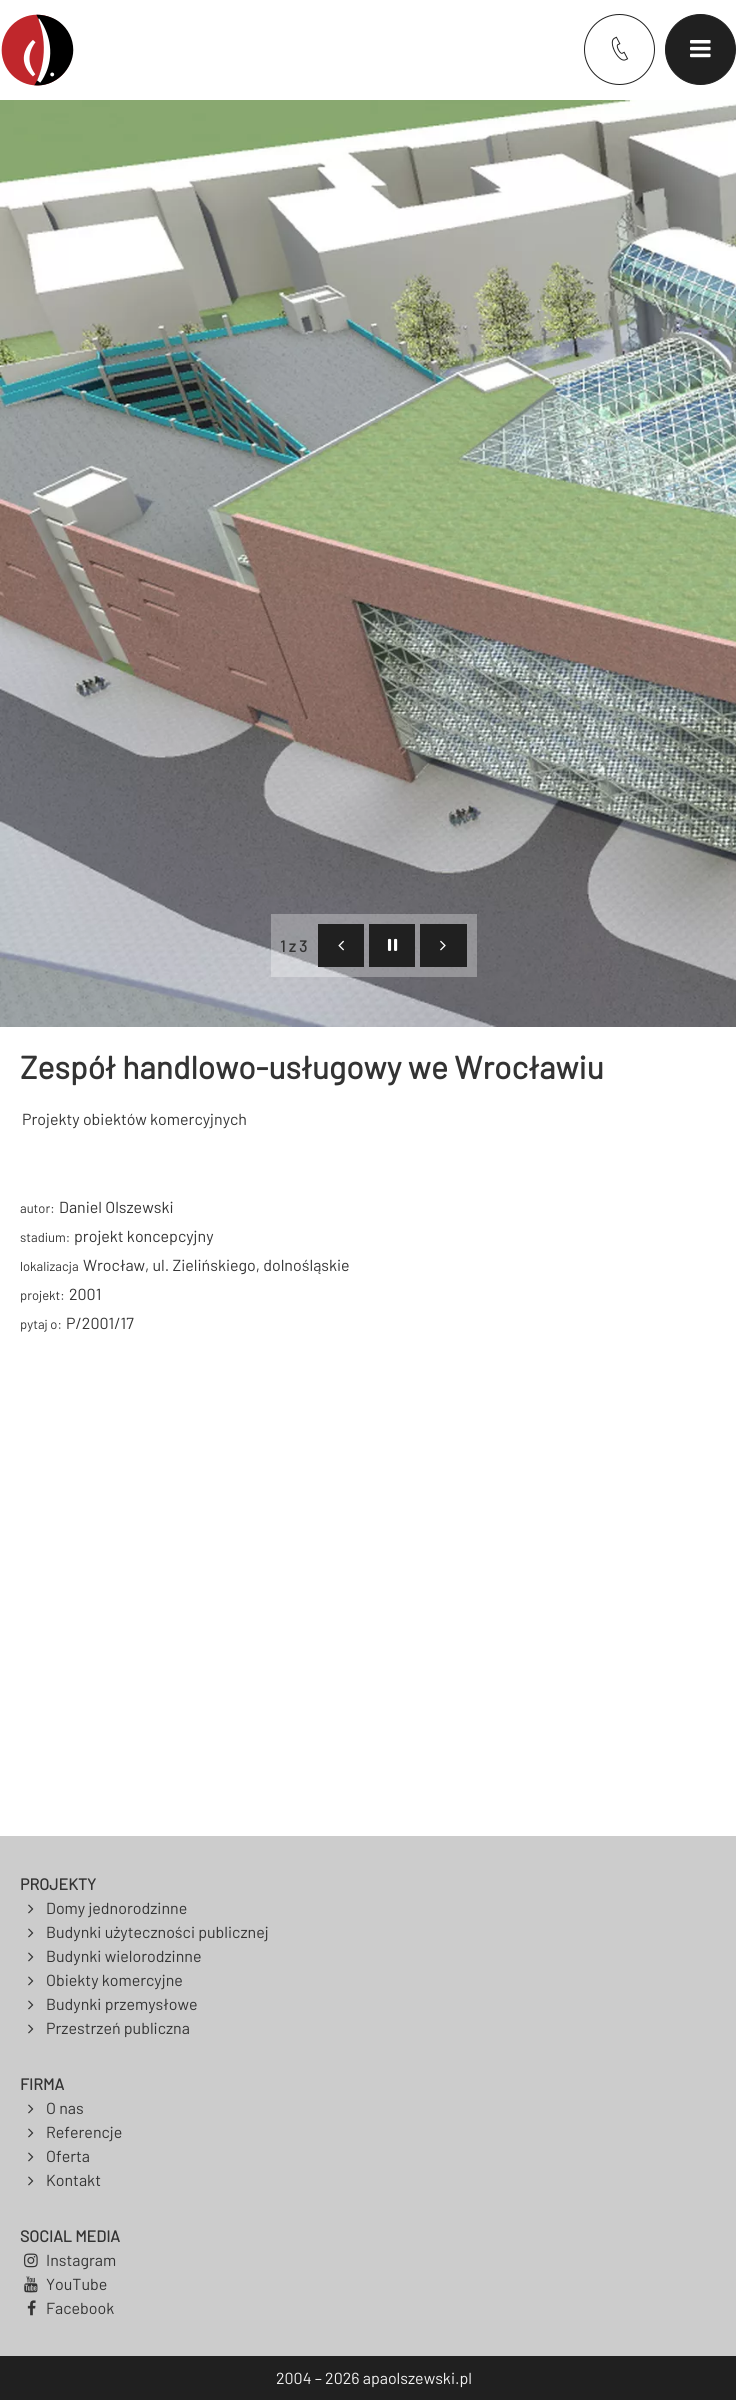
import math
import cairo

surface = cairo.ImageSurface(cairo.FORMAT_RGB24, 736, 2400)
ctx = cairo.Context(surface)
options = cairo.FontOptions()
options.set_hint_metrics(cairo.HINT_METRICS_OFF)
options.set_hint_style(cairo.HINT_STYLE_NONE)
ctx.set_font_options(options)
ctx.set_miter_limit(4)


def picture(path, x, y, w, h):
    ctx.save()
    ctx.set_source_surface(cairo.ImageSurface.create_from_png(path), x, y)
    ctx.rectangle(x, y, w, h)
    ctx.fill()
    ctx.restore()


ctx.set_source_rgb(1, 1, 1)
ctx.paint()
picture("img1.png", 1, 14, 73, 72)
ctx.arc(619.5, 49.5, 35, 0, 2 * math.pi)
ctx.set_source_rgb(0.125, 0.125, 0.125)
ctx.set_line_width(1)
ctx.stroke()
picture("img2.png", 611, 36, 18, 25)
ctx.arc(700.5, 49.5, 35, 0, 2 * math.pi)
ctx.fill_preserve()
ctx.stroke()
picture("img3.png", 690, 40, 21, 18)
picture("img4.png", 0, 100, 736, 927)
ctx.set_source_rgba(1, 1, 1, 0.3)
ctx.rectangle(271, 914, 206, 63)
ctx.fill()
ctx.select_font_face("Barlow", cairo.FONT_SLANT_NORMAL, cairo.FONT_WEIGHT_BOLD)
ctx.set_font_size(16)
ctx.set_source_rgb(0.2, 0.2, 0.2)
ctx.move_to(280, 952)
ctx.show_text("1 z 3")
ctx.set_source_rgb(0.125, 0.125, 0.125)
ctx.rectangle(318, 924, 46, 43)
ctx.fill()
picture("img5.png", 338, 940, 6, 11)
ctx.rectangle(369, 924, 46, 43)
ctx.fill()
picture("img6.png", 387, 938, 11, 13)
ctx.rectangle(420, 924, 47, 43)
ctx.fill()
picture("img7.png", 440, 940, 6, 11)
ctx.set_font_size(32)
ctx.set_source_rgb(0.2, 0.2, 0.2)
ctx.move_to(20, 1079)
ctx.show_text("Zespół handlowo-usługowy we Wrocławiu")
ctx.select_font_face("Barlow")
ctx.set_font_size(16)
ctx.move_to(22, 1125)
ctx.show_text("Projekty obiektów komercyjnych")
ctx.set_font_size(13)
ctx.move_to(20, 1213)
ctx.show_text("autor:")
ctx.set_font_size(16)
ctx.move_to(59, 1213)
ctx.show_text("Daniel Olszewski")
ctx.set_font_size(13)
ctx.move_to(20, 1242)
ctx.show_text("stadium:")
ctx.set_font_size(16)
ctx.move_to(74, 1242)
ctx.show_text("projekt koncepcyjny")
ctx.set_font_size(13)
ctx.move_to(20, 1271)
ctx.show_text("lokalizacja")
ctx.set_font_size(16)
ctx.move_to(83, 1271)
ctx.show_text("Wrocław, ul. Zielińskiego, dolnośląskie")
ctx.set_font_size(13)
ctx.move_to(20, 1300)
ctx.show_text("projekt:")
ctx.set_font_size(16)
ctx.move_to(69, 1300)
ctx.show_text("2001")
ctx.set_font_size(13)
ctx.move_to(20, 1329)
ctx.show_text("pytaj o:")
ctx.set_font_size(16)
ctx.move_to(66, 1329)
ctx.show_text("P/2001/17")
ctx.set_source_rgb(0.8, 0.8, 0.8)
ctx.rectangle(0, 1836, 736, 520)
ctx.fill()
ctx.select_font_face("Barlow", cairo.FONT_SLANT_NORMAL, cairo.FONT_WEIGHT_BOLD)
ctx.set_source_rgb(0.2, 0.2, 0.2)
ctx.move_to(20, 1890)
ctx.show_text("PROJEKTY")
picture("img8.png", 28, 1904, 6, 10)
ctx.select_font_face("Barlow")
ctx.move_to(46, 1914)
ctx.show_text("Domy jednorodzinne")
picture("img8.png", 28, 1928, 6, 10)
ctx.move_to(46, 1938)
ctx.show_text("Budynki użyteczności publicznej")
picture("img8.png", 28, 1952, 6, 10)
ctx.move_to(46, 1962)
ctx.show_text("Budynki wielorodzinne")
picture("img8.png", 28, 1976, 6, 10)
ctx.move_to(46, 1986)
ctx.show_text("Obiekty komercyjne")
picture("img8.png", 28, 2000, 6, 10)
ctx.move_to(46, 2010)
ctx.show_text("Budynki przemysłowe")
picture("img8.png", 28, 2024, 6, 10)
ctx.move_to(46, 2034)
ctx.show_text("Przestrzeń publiczna")
ctx.select_font_face("Barlow", cairo.FONT_SLANT_NORMAL, cairo.FONT_WEIGHT_BOLD)
ctx.move_to(20, 2090)
ctx.show_text("FIRMA")
picture("img8.png", 28, 2104, 6, 10)
ctx.select_font_face("Barlow")
ctx.move_to(46, 2114)
ctx.show_text("O nas")
picture("img8.png", 28, 2128, 6, 10)
ctx.move_to(46, 2138)
ctx.show_text("Referencje")
picture("img8.png", 28, 2152, 6, 10)
ctx.move_to(46, 2162)
ctx.show_text("Oferta")
picture("img8.png", 28, 2176, 6, 10)
ctx.move_to(46, 2186)
ctx.show_text("Kontakt")
ctx.select_font_face("Barlow", cairo.FONT_SLANT_NORMAL, cairo.FONT_WEIGHT_BOLD)
ctx.move_to(20, 2242)
ctx.show_text("SOCIAL MEDIA")
picture("img9.png", 24, 2253, 14, 15)
ctx.select_font_face("Barlow")
ctx.move_to(46, 2266)
ctx.show_text("Instagram")
picture("img10.png", 24, 2276, 14, 17)
ctx.move_to(46, 2290)
ctx.show_text("YouTube")
picture("img11.png", 27, 2300, 9, 16)
ctx.move_to(46, 2314)
ctx.show_text("Facebook")
ctx.set_source_rgb(0.125, 0.125, 0.125)
ctx.rectangle(0, 2356, 736, 44)
ctx.fill()
ctx.set_source_rgb(0.949, 0.949, 0.949)
ctx.move_to(276, 2384)
ctx.show_text("2004 – 2026 apaolszewski.pl")
surface.write_to_png("page.png")
